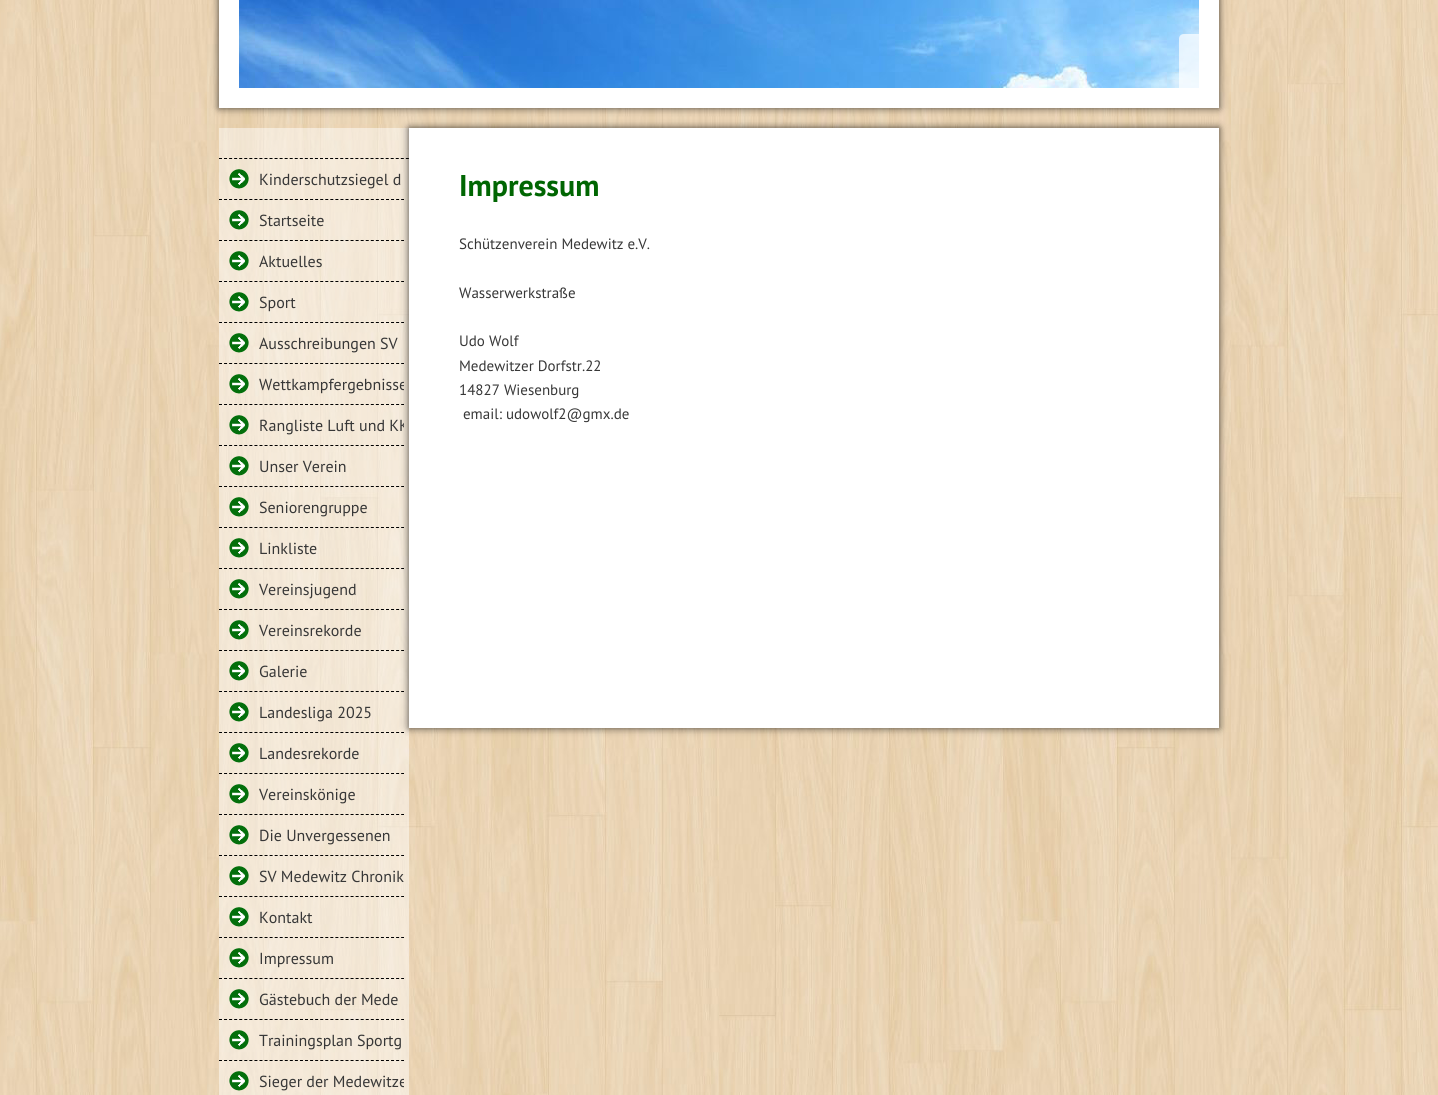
import math
import cairo

surface = cairo.ImageSurface(cairo.FORMAT_RGB24, 1438, 1095)
ctx = cairo.Context(surface)
options = cairo.FontOptions()
options.set_hint_metrics(cairo.HINT_METRICS_OFF)
options.set_hint_style(cairo.HINT_STYLE_NONE)
ctx.set_font_options(options)
ctx.set_miter_limit(4)


def round_rect(x, y, w, h, r):
    ctx.new_sub_path()
    for i, (u, v) in enumerate([(x + w - r, y + h - r), (x + r, y + h - r), (x + r, y + r), (x + w - r, y + r)]):
        ctx.arc(u, v, r, i * math.pi / 2, (i + 1) * math.pi / 2)
    ctx.close_path()


def shadow(x, y, w, h, r, blur, alpha):
    ctx.push_group_with_content(cairo.CONTENT_ALPHA)
    ctx.set_operator(cairo.OPERATOR_SOURCE)
    for i in range(15, -16, -2):
        e = blur * i / 6
        if min(w, h) + 2 * e > 0:
            ctx.set_source_rgba(0, 0, 0, alpha * math.erfc((i - 1) / 8.5) / 2)
            round_rect(x - e, y - e, w + 2 * e, h + 2 * e, max(0, min(r + e + blur * .6, min(w, h) / 2 + e)))
            ctx.fill()
    ctx.mask(ctx.pop_group())


def picture(path, x, y, w, h):
    ctx.save()
    ctx.set_source_surface(cairo.ImageSurface.create_from_png(path), x, y)
    ctx.rectangle(x, y, w, h)
    ctx.fill()
    ctx.restore()


ctx.set_source_rgb(1, 1, 1)
ctx.paint()
picture("img1.png", 0, 0, 1438, 1095)
ctx.set_source_rgb(0, 0, 0)
shadow(219, -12, 1000, 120, 0, 4, 0.7)
ctx.set_source_rgb(1, 1, 1)
ctx.rectangle(219, 0, 1000, 108)
ctx.fill()
picture("img2.png", 239, 0, 960, 88)
ctx.set_source_rgba(1, 1, 1, 0.7)
ctx.new_path()
ctx.move_to(1184, 34)
ctx.line_to(1199, 34)
ctx.line_to(1199, 88)
ctx.line_to(1179, 88)
ctx.line_to(1179, 39)
ctx.curve_to(1179, 36, 1181, 34, 1184, 34)
ctx.close_path()
ctx.fill()
ctx.set_source_rgba(1, 1, 1, 0.48)
ctx.rectangle(219, 128, 190, 967)
ctx.fill()
ctx.new_path()
ctx.move_to(219, 158.5)
ctx.line_to(409, 158.5)
ctx.set_source_rgb(0, 0, 0)
ctx.set_line_width(1)
ctx.set_dash([3, 2.05])
ctx.stroke()
ctx.set_source_rgb(0, 0, 0)
shadow(409, 128, 810, 600, 0, 4, 0.7)
ctx.new_path()
ctx.move_to(219, 199.5)
ctx.line_to(404, 199.5)
ctx.set_source_rgb(0, 0, 0)
ctx.set_dash([3, 2.06])
ctx.stroke()
picture("img3.png", 229, 169, 20, 20)
ctx.select_font_face("PT Sans")
ctx.set_font_size(16)
ctx.set_source_rgb(0.216, 0.216, 0.216)
ctx.move_to(259, 185)
ctx.show_text("Kinderschutzsiegel d")
ctx.new_path()
ctx.move_to(219, 240.5)
ctx.line_to(404, 240.5)
ctx.set_source_rgb(0, 0, 0)
ctx.stroke()
picture("img4.png", 229, 210, 20, 20)
ctx.set_source_rgb(0.216, 0.216, 0.216)
ctx.move_to(259, 226)
ctx.show_text("Startseite")
ctx.new_path()
ctx.move_to(219, 281.5)
ctx.line_to(404, 281.5)
ctx.set_source_rgb(0, 0, 0)
ctx.stroke()
picture("img5.png", 229, 251, 20, 20)
ctx.set_source_rgb(0.216, 0.216, 0.216)
ctx.move_to(259, 267)
ctx.show_text("Aktuelles")
ctx.new_path()
ctx.move_to(219, 322.5)
ctx.line_to(404, 322.5)
ctx.set_source_rgb(0, 0, 0)
ctx.stroke()
picture("img6.png", 229, 292, 20, 20)
ctx.set_source_rgb(0.216, 0.216, 0.216)
ctx.move_to(259, 308)
ctx.show_text("Sport")
ctx.new_path()
ctx.move_to(219, 363.5)
ctx.line_to(404, 363.5)
ctx.set_source_rgb(0, 0, 0)
ctx.stroke()
picture("img7.png", 229, 333, 20, 20)
ctx.set_source_rgb(0.216, 0.216, 0.216)
ctx.move_to(259, 349)
ctx.show_text("Ausschreibungen SV")
ctx.new_path()
ctx.move_to(219, 404.5)
ctx.line_to(404, 404.5)
ctx.set_source_rgb(0, 0, 0)
ctx.stroke()
picture("img8.png", 229, 374, 20, 20)
ctx.save()
ctx.rectangle(219, 364, 185, 40)
ctx.clip()
ctx.set_source_rgb(0.216, 0.216, 0.216)
ctx.move_to(259, 390)
ctx.show_text("Wettkampfergebnisse")
ctx.restore()
ctx.new_path()
ctx.move_to(219, 445.5)
ctx.line_to(404, 445.5)
ctx.stroke()
picture("img9.png", 229, 415, 20, 20)
ctx.save()
ctx.rectangle(219, 405, 185, 40)
ctx.clip()
ctx.set_source_rgb(0.216, 0.216, 0.216)
ctx.move_to(259, 431)
ctx.show_text("Rangliste Luft und KK")
ctx.restore()
ctx.new_path()
ctx.move_to(219, 486.5)
ctx.line_to(404, 486.5)
ctx.stroke()
picture("img10.png", 229, 456, 20, 20)
ctx.set_source_rgb(0.216, 0.216, 0.216)
ctx.move_to(259, 472)
ctx.show_text("Unser Verein")
ctx.new_path()
ctx.move_to(219, 527.5)
ctx.line_to(404, 527.5)
ctx.set_source_rgb(0, 0, 0)
ctx.stroke()
picture("img11.png", 229, 497, 20, 20)
ctx.set_source_rgb(0.216, 0.216, 0.216)
ctx.move_to(259, 513)
ctx.show_text("Seniorengruppe")
ctx.new_path()
ctx.move_to(219, 568.5)
ctx.line_to(404, 568.5)
ctx.set_source_rgb(0, 0, 0)
ctx.stroke()
picture("img12.png", 229, 538, 20, 20)
ctx.set_source_rgb(0.216, 0.216, 0.216)
ctx.move_to(259, 554)
ctx.show_text("Linkliste")
ctx.new_path()
ctx.move_to(219, 609.5)
ctx.line_to(404, 609.5)
ctx.set_source_rgb(0, 0, 0)
ctx.stroke()
picture("img13.png", 229, 579, 20, 20)
ctx.set_source_rgb(0.216, 0.216, 0.216)
ctx.move_to(259, 595)
ctx.show_text("Vereinsjugend")
ctx.new_path()
ctx.move_to(219, 650.5)
ctx.line_to(404, 650.5)
ctx.set_source_rgb(0, 0, 0)
ctx.stroke()
picture("img14.png", 229, 620, 20, 20)
ctx.set_source_rgb(0.216, 0.216, 0.216)
ctx.move_to(259, 636)
ctx.show_text("Vereinsrekorde")
ctx.new_path()
ctx.move_to(219, 691.5)
ctx.line_to(404, 691.5)
ctx.set_source_rgb(0, 0, 0)
ctx.stroke()
picture("img15.png", 229, 661, 20, 20)
ctx.set_source_rgb(0.216, 0.216, 0.216)
ctx.move_to(259, 677)
ctx.show_text("Galerie")
ctx.new_path()
ctx.move_to(219, 732.5)
ctx.line_to(404, 732.5)
ctx.set_source_rgb(0, 0, 0)
ctx.stroke()
picture("img16.png", 229, 702, 20, 20)
ctx.set_source_rgb(0.216, 0.216, 0.216)
ctx.move_to(259, 718)
ctx.show_text("Landesliga 2025")
ctx.new_path()
ctx.move_to(219, 773.5)
ctx.line_to(404, 773.5)
ctx.set_source_rgb(0, 0, 0)
ctx.stroke()
picture("img17.png", 229, 743, 20, 20)
ctx.set_source_rgb(0.216, 0.216, 0.216)
ctx.move_to(259, 759)
ctx.show_text("Landesrekorde")
ctx.new_path()
ctx.move_to(219, 814.5)
ctx.line_to(404, 814.5)
ctx.set_source_rgb(0, 0, 0)
ctx.stroke()
picture("img18.png", 229, 784, 20, 20)
ctx.set_source_rgb(0.216, 0.216, 0.216)
ctx.move_to(259, 800)
ctx.show_text("Vereinskönige")
ctx.new_path()
ctx.move_to(219, 855.5)
ctx.line_to(404, 855.5)
ctx.set_source_rgb(0, 0, 0)
ctx.stroke()
picture("img19.png", 229, 825, 20, 20)
ctx.set_source_rgb(0.216, 0.216, 0.216)
ctx.move_to(259, 841)
ctx.show_text("Die Unvergessenen")
ctx.new_path()
ctx.move_to(219, 896.5)
ctx.line_to(404, 896.5)
ctx.set_source_rgb(0, 0, 0)
ctx.stroke()
picture("img20.png", 229, 866, 20, 20)
ctx.set_source_rgb(0.216, 0.216, 0.216)
ctx.move_to(259, 882)
ctx.show_text("SV Medewitz Chronik")
ctx.new_path()
ctx.move_to(219, 937.5)
ctx.line_to(404, 937.5)
ctx.set_source_rgb(0, 0, 0)
ctx.stroke()
picture("img21.png", 229, 907, 20, 20)
ctx.set_source_rgb(0.216, 0.216, 0.216)
ctx.move_to(259, 923)
ctx.show_text("Kontakt")
ctx.new_path()
ctx.move_to(219, 978.5)
ctx.line_to(404, 978.5)
ctx.set_source_rgb(0, 0, 0)
ctx.stroke()
picture("img22.png", 229, 948, 20, 20)
ctx.set_source_rgb(0.216, 0.216, 0.216)
ctx.move_to(259, 964)
ctx.show_text("Impressum")
ctx.new_path()
ctx.move_to(219, 1019.5)
ctx.line_to(404, 1019.5)
ctx.set_source_rgb(0, 0, 0)
ctx.stroke()
picture("img23.png", 229, 989, 20, 20)
ctx.set_source_rgb(0.216, 0.216, 0.216)
ctx.move_to(259, 1005)
ctx.show_text("Gästebuch der Mede")
ctx.new_path()
ctx.move_to(219, 1060.5)
ctx.line_to(404, 1060.5)
ctx.set_source_rgb(0, 0, 0)
ctx.stroke()
picture("img24.png", 229, 1030, 20, 20)
ctx.set_source_rgb(0.216, 0.216, 0.216)
ctx.move_to(259, 1046)
ctx.show_text("Trainingsplan Sportg")
picture("img25.png", 229, 1071, 20, 20)
ctx.save()
ctx.rectangle(219, 1061, 185, 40)
ctx.clip()
ctx.move_to(259, 1087)
ctx.show_text("Sieger der Medewitze")
ctx.restore()
ctx.set_source_rgb(1, 1, 1)
ctx.rectangle(409, 128, 810, 600)
ctx.fill()
ctx.select_font_face("PT Sans", cairo.FONT_SLANT_NORMAL, cairo.FONT_WEIGHT_BOLD)
ctx.set_font_size(30)
ctx.set_source_rgb(0, 0.4, 0.008)
ctx.move_to(459, 196)
ctx.show_text("Impressum")
ctx.select_font_face("PT Sans")
ctx.set_font_size(15)
ctx.set_source_rgb(0.216, 0.216, 0.216)
ctx.move_to(459, 249)
ctx.show_text("Schützenverein Medewitz e.V.")
ctx.move_to(459, 298)
ctx.show_text("Wasserwerkstraße")
ctx.move_to(459, 346)
ctx.show_text("Udo Wolf")
ctx.move_to(459, 371)
ctx.show_text("Medewitzer Dorfstr.22")
ctx.move_to(459, 395)
ctx.show_text("14827 Wiesenburg")
ctx.move_to(463, 419)
ctx.show_text("email: udowolf2@gmx.de")
surface.write_to_png("page.png")
